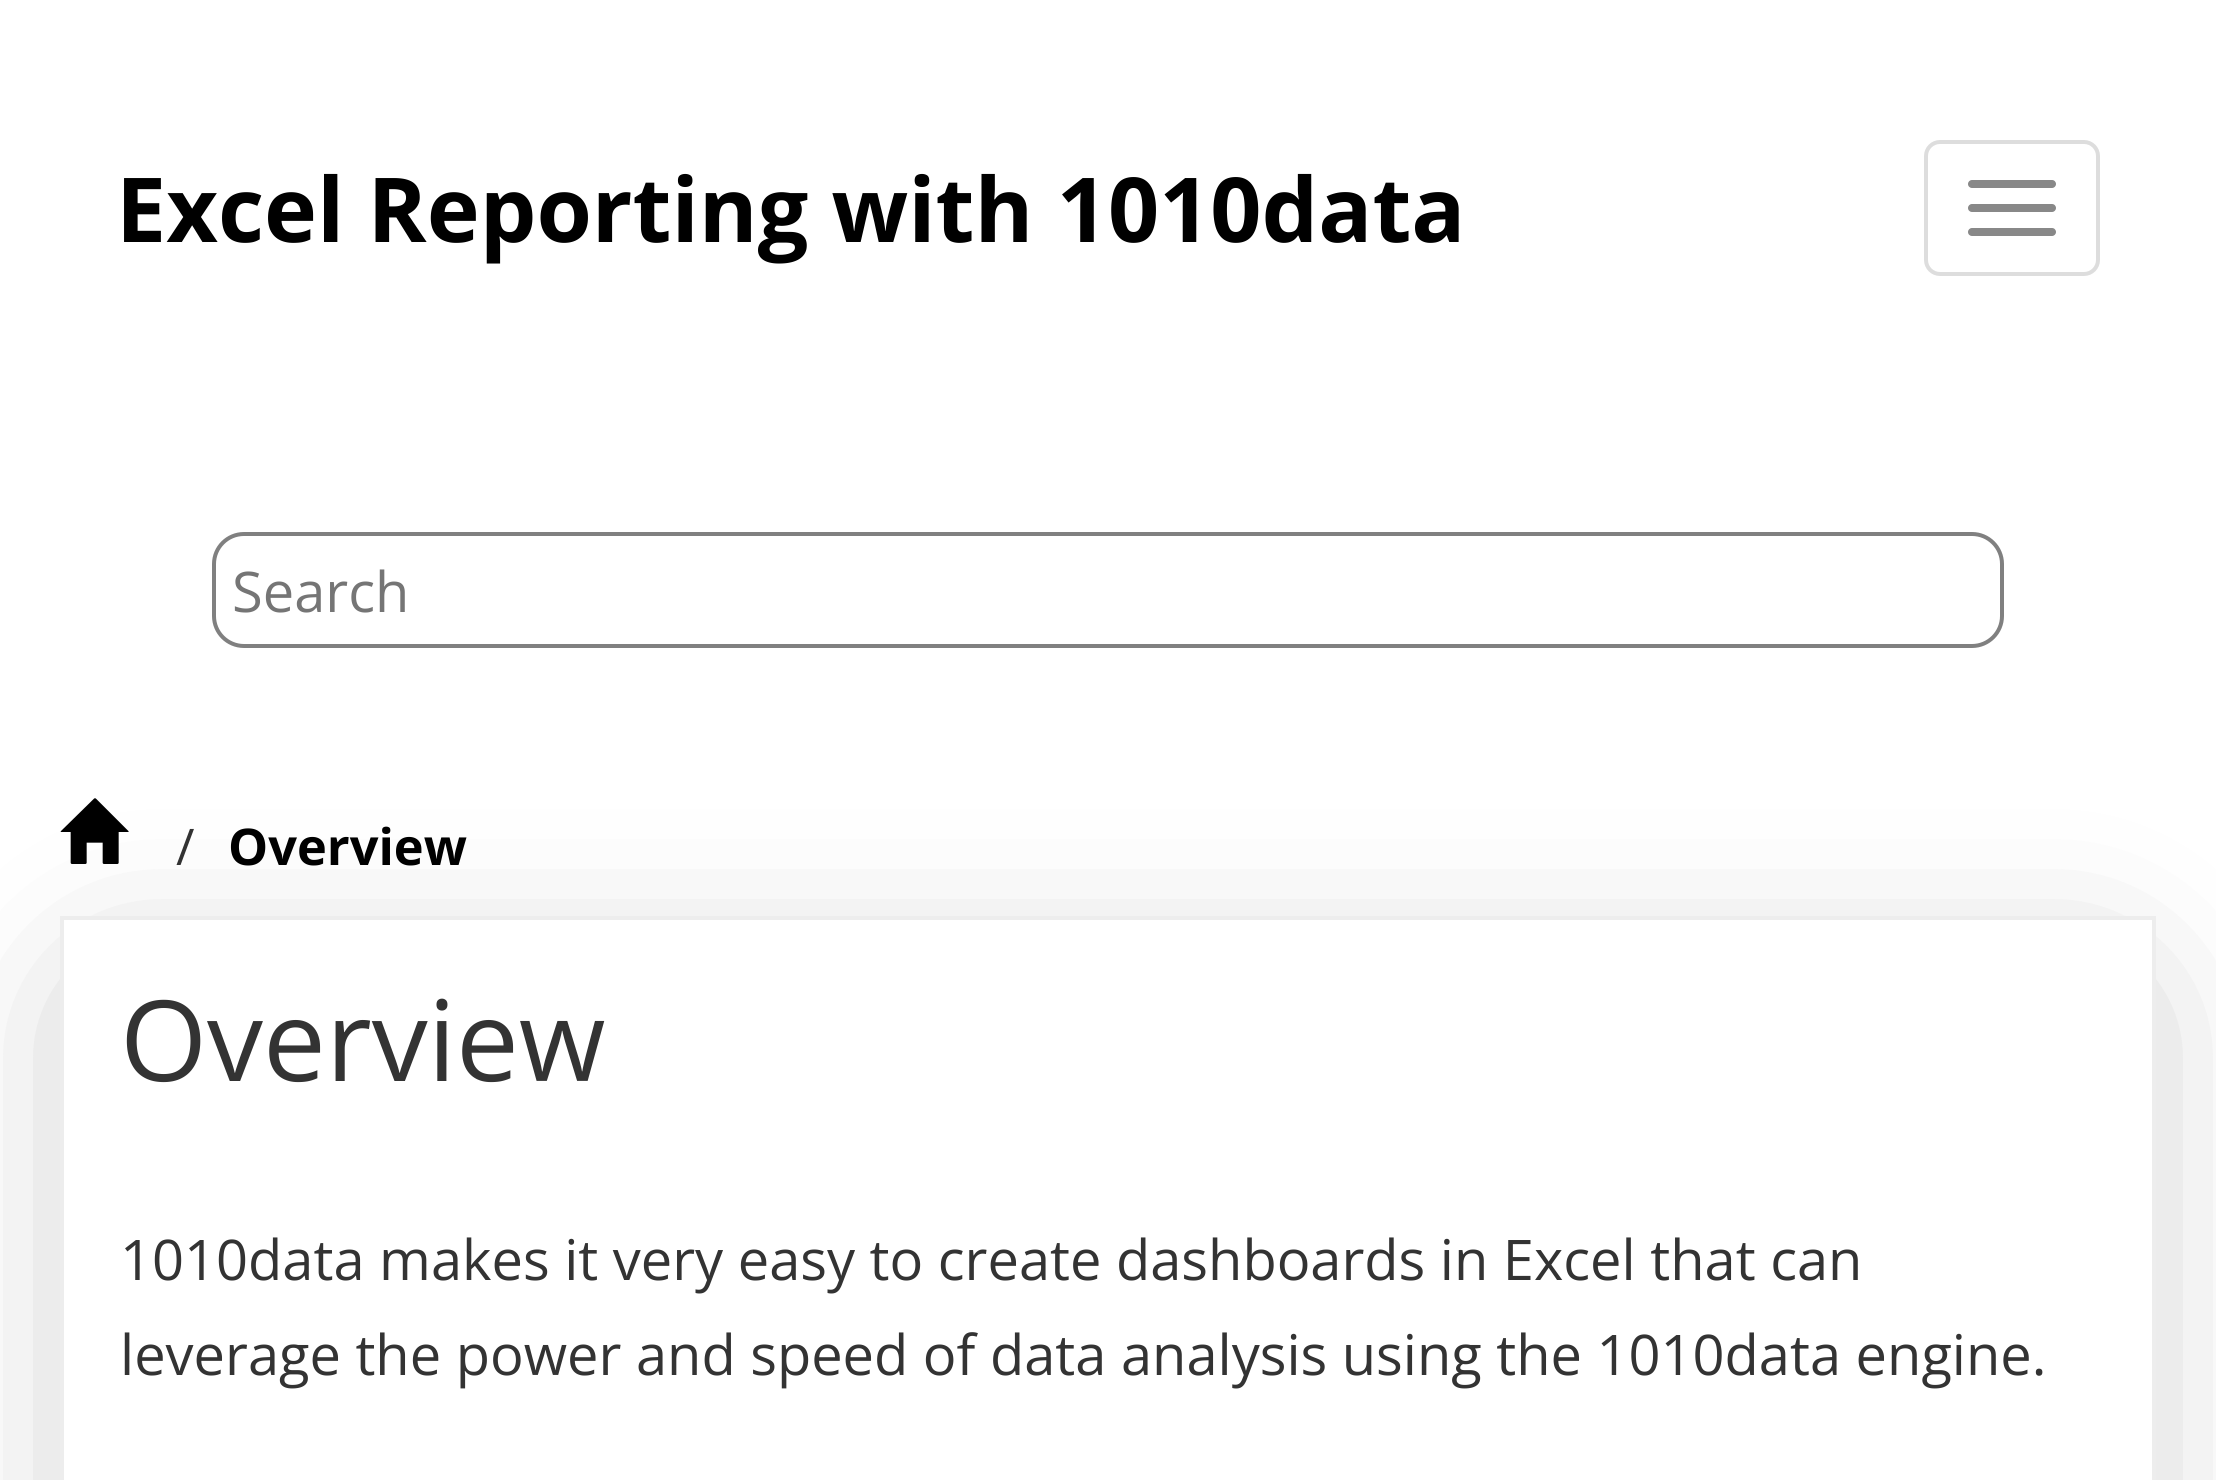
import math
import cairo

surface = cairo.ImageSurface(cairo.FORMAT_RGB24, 2216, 1480)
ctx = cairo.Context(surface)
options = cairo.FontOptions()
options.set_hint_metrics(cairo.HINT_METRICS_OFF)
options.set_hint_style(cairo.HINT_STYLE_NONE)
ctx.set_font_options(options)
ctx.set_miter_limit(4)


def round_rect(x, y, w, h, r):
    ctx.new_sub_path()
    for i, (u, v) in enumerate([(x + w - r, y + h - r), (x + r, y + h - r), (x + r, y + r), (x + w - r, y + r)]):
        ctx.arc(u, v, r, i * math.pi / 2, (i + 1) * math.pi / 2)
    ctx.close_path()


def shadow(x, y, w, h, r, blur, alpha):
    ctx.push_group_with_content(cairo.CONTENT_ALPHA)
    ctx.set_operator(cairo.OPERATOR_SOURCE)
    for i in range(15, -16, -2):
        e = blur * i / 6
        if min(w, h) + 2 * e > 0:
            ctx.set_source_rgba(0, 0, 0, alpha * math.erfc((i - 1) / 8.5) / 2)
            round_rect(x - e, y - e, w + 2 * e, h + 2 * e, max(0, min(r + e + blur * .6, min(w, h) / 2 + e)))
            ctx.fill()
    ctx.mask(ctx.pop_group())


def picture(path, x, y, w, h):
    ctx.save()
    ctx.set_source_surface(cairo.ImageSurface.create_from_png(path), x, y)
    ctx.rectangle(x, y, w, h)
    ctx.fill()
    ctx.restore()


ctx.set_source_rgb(1, 1, 1)
ctx.paint()
ctx.select_font_face("Open Sans", cairo.FONT_SLANT_NORMAL, cairo.FONT_WEIGHT_BOLD)
ctx.set_font_size(89.6)
ctx.set_source_rgb(0, 0, 0)
ctx.move_to(116, 242)
ctx.show_text("Excel Reporting with 1010data")
round_rect(1926, 142, 172, 132, 14)
ctx.set_source_rgb(0.867, 0.867, 0.867)
ctx.set_line_width(4)
ctx.stroke()
ctx.set_source_rgb(0.533, 0.533, 0.533)
round_rect(1968, 180, 88, 8, 4)
ctx.fill()
round_rect(1968, 204, 88, 8, 4)
ctx.fill()
round_rect(1968, 228, 88, 8, 4)
ctx.fill()
round_rect(214, 534, 1788, 112, 30)
ctx.set_source_rgb(0.502, 0.502, 0.502)
ctx.stroke()
ctx.select_font_face("Open Sans")
ctx.set_font_size(56)
ctx.set_source_rgb(0.459, 0.459, 0.459)
ctx.move_to(232, 612)
ctx.show_text("Search")
picture("img1.png", 60, 798, 69, 66)
ctx.set_font_size(50.5)
ctx.set_source_rgb(0.2, 0.2, 0.2)
ctx.move_to(176, 865)
ctx.show_text("/")
ctx.select_font_face("Open Sans", cairo.FONT_SLANT_NORMAL, cairo.FONT_WEIGHT_BOLD)
ctx.set_source_rgb(0, 0, 0)
ctx.move_to(228, 865)
ctx.show_text("Overview")
ctx.save()
ctx.set_fill_rule(cairo.FILL_RULE_EVEN_ODD)
ctx.new_path()
ctx.move_to(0, 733)
ctx.line_to(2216, 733)
ctx.line_to(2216, 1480)
ctx.line_to(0, 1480)
ctx.close_path()
ctx.move_to(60, 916)
ctx.line_to(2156, 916)
ctx.line_to(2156, 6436)
ctx.line_to(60, 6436)
ctx.close_path()
ctx.clip()
ctx.set_source_rgb(0, 0, 0)
shadow(108, 1004, 2000, 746, 0, 90, 0.3)
ctx.restore()
ctx.rectangle(62, 918, 2092, 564)
ctx.set_source_rgb(0.929, 0.929, 0.929)
ctx.stroke()
ctx.select_font_face("Open Sans")
ctx.set_font_size(112)
ctx.set_source_rgb(0.2, 0.2, 0.2)
ctx.move_to(120, 1081)
ctx.show_text("Overview")
ctx.set_font_size(56)
ctx.move_to(120, 1280)
ctx.show_text("1010data makes it very easy to create dashboards in Excel that can")
ctx.move_to(120, 1375)
ctx.show_text("leverage the power and speed of data analysis using the 1010data engine.")
surface.write_to_png("page.png")
